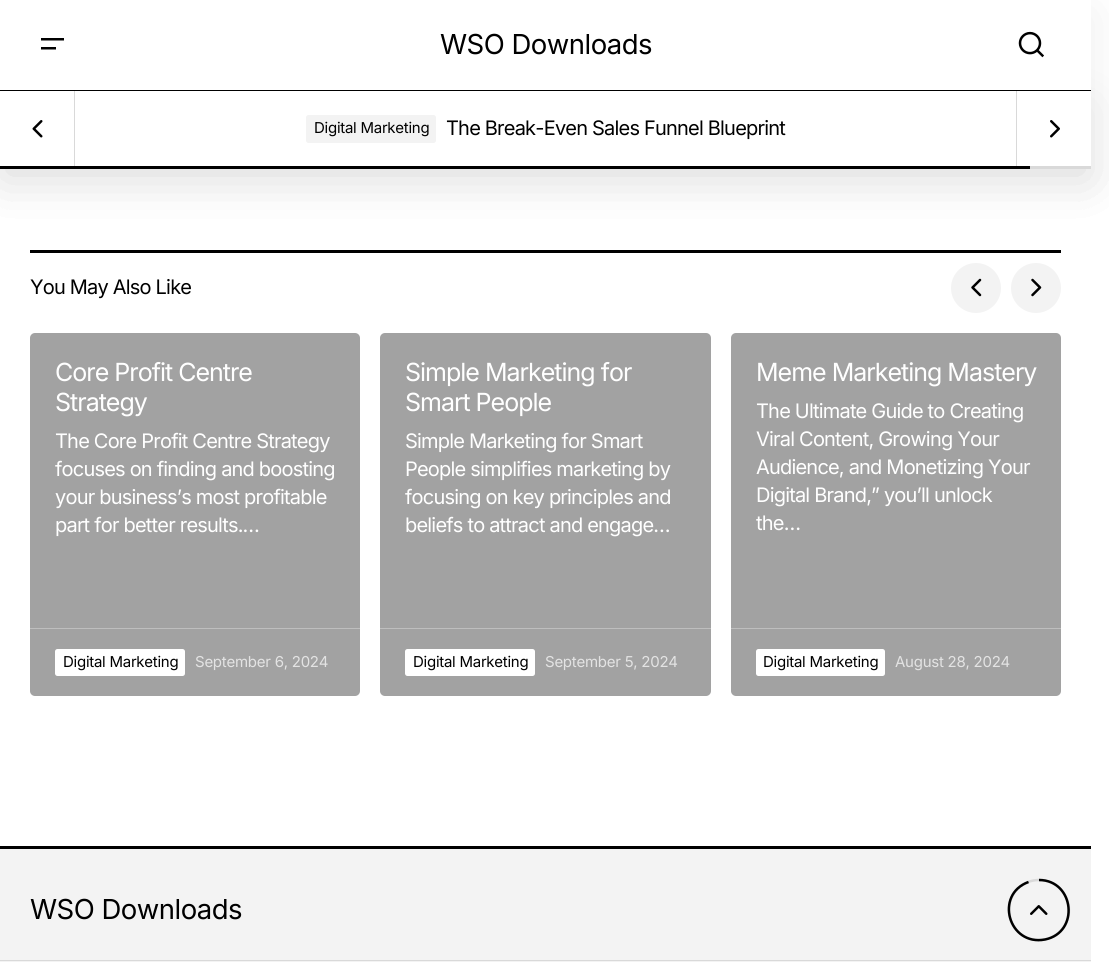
import math
import cairo

surface = cairo.ImageSurface(cairo.FORMAT_RGB24, 1109, 962)
ctx = cairo.Context(surface)
options = cairo.FontOptions()
options.set_hint_metrics(cairo.HINT_METRICS_OFF)
options.set_hint_style(cairo.HINT_STYLE_NONE)
ctx.set_font_options(options)
ctx.set_miter_limit(4)


def spaced_text(x, y, s, letter, word):
    ctx.move_to(x, y)
    for ch in s:
        ctx.show_text(ch)
        ctx.rel_move_to(letter + word * (ch == ' '), 0)


def round_rect(x, y, w, h, r):
    ctx.new_sub_path()
    for i, (u, v) in enumerate([(x + w - r, y + h - r), (x + r, y + h - r), (x + r, y + r), (x + w - r, y + r)]):
        ctx.arc(u, v, r, i * math.pi / 2, (i + 1) * math.pi / 2)
    ctx.close_path()


def shadow(x, y, w, h, r, blur, alpha):
    ctx.push_group_with_content(cairo.CONTENT_ALPHA)
    ctx.set_operator(cairo.OPERATOR_SOURCE)
    for i in range(15, -16, -2):
        e = blur * i / 6
        if min(w, h) + 2 * e > 0:
            ctx.set_source_rgba(0, 0, 0, alpha * math.erfc((i - 1) / 8.5) / 2)
            round_rect(x - e, y - e, w + 2 * e, h + 2 * e, max(0, min(r + e + blur * .6, min(w, h) / 2 + e)))
            ctx.fill()
    ctx.mask(ctx.pop_group())


def picture(path, x, y, w, h):
    ctx.save()
    ctx.set_source_surface(cairo.ImageSurface.create_from_png(path), x, y)
    ctx.rectangle(x, y, w, h)
    ctx.fill()
    ctx.restore()


ctx.set_source_rgb(1, 1, 1)
ctx.paint()
ctx.set_source_rgb(0, 0, 0)
ctx.rectangle(30, 250, 1031, 3)
ctx.fill()
ctx.set_source_rgb(0, 0, 0)
shadow(0, 13, 1091, 168, 0, 25, 0.07)
shadow(0, 104, 1091, 77, 0, 25, 0.07)
ctx.set_source_rgb(1, 1, 1)
ctx.rectangle(0, 0, 1091, 90)
ctx.fill()
ctx.set_source_rgb(0, 0, 0)
ctx.new_path()
ctx.move_to(41, 38)
ctx.line_to(64, 38)
ctx.line_to(64, 40.5)
ctx.line_to(41, 40.5)
ctx.close_path()
ctx.move_to(41, 47)
ctx.line_to(56, 47)
ctx.line_to(56, 49.5)
ctx.line_to(41, 49.5)
ctx.close_path()
ctx.fill()
ctx.select_font_face("Inter")
ctx.set_font_size(27.5)
spaced_text(440, 54, "WSO Downloads", -0.5, 0)
picture("img1.png", 1018, 31, 26, 27)
ctx.rectangle(0, 90, 1091, 1)
ctx.fill()
ctx.set_source_rgb(1, 1, 1)
ctx.rectangle(0, 91, 1091, 75)
ctx.fill()
ctx.set_source_rgb(0.851, 0.851, 0.851)
ctx.rectangle(74, 91, 1, 75)
ctx.fill()
picture("img2.png", 32, 120, 11, 18)
ctx.set_source_rgb(0.953, 0.953, 0.953)
round_rect(306, 115, 130, 28, 2.5)
ctx.fill()
ctx.set_font_size(15)
ctx.set_source_rgb(0, 0, 0)
spaced_text(314, 133, "Digital Marketing", -0.25, 0)
ctx.set_font_size(20)
spaced_text(446, 135, "The Break-Even Sales Funnel Blueprint", -0.8, 0)
ctx.set_source_rgb(0.851, 0.851, 0.851)
ctx.rectangle(1016, 91, 1, 75)
ctx.fill()
picture("img3.png", 1050, 120, 10, 18)
ctx.rectangle(1030, 166, 61, 3)
ctx.fill()
ctx.set_source_rgb(0, 0, 0)
ctx.rectangle(0, 166, 1030, 3)
ctx.fill()
spaced_text(30, 294, "You May Also Like", -0.8, 0)
ctx.set_source_rgb(0.953, 0.953, 0.953)
ctx.new_path()
ctx.arc(976, 288, 25, 0, 2 * math.pi)
ctx.fill()
picture("img4.png", 971, 278, 11, 19)
ctx.arc(1036, 288, 25, 0, 2 * math.pi)
ctx.fill()
picture("img5.png", 1031, 278, 11, 19)
ctx.set_source_rgb(0.635, 0.635, 0.635)
round_rect(30, 333, 330, 363, 5)
ctx.fill()
ctx.set_font_size(25)
ctx.set_source_rgb(1, 1, 1)
spaced_text(55, 381, "Core Profit Centre", -1, 0)
spaced_text(55, 411, "Strategy", -1, 0)
ctx.set_font_size(20)
spaced_text(55, 448, "The Core Profit Centre Strategy", -0.8, 0)
spaced_text(55, 476, "focuses on finding and boosting", -0.8, 0)
spaced_text(55, 504, "your business’s most profitable", -0.8, 0)
spaced_text(55, 532, "part for better results.…", -0.8, 0)
ctx.set_source_rgb(0.745, 0.745, 0.745)
ctx.rectangle(30, 628, 330, 1)
ctx.fill()
ctx.set_source_rgb(1, 1, 1)
round_rect(55, 649, 130, 27, 2.5)
ctx.fill()
ctx.set_font_size(15)
ctx.set_source_rgb(0, 0, 0)
spaced_text(63, 667, "Digital Marketing", -0.25, 0)
ctx.set_source_rgb(0.89, 0.89, 0.89)
spaced_text(195, 667, "September 6, 2024", -0.25, 0)
ctx.set_source_rgb(0.635, 0.635, 0.635)
round_rect(380, 333, 331, 363, 5)
ctx.fill()
ctx.set_font_size(25)
ctx.set_source_rgb(1, 1, 1)
spaced_text(405, 381, "Simple Marketing for", -1, 0)
spaced_text(405, 411, "Smart People", -1, 0)
ctx.set_font_size(20)
spaced_text(405, 448, "Simple Marketing for Smart", -0.8, 0)
spaced_text(405, 476, "People simplifies marketing by", -0.8, 0)
spaced_text(405, 504, "focusing on key principles and", -0.8, 0)
spaced_text(405, 532, "beliefs to attract and engage…", -0.8, 0)
ctx.set_source_rgb(0.745, 0.745, 0.745)
ctx.rectangle(380, 628, 331, 1)
ctx.fill()
ctx.set_source_rgb(1, 1, 1)
round_rect(405, 649, 130, 27, 2.5)
ctx.fill()
ctx.set_font_size(15)
ctx.set_source_rgb(0, 0, 0)
spaced_text(413, 667, "Digital Marketing", -0.25, 0)
ctx.set_source_rgb(0.89, 0.89, 0.89)
spaced_text(545, 667, "September 5, 2024", -0.25, 0)
ctx.set_source_rgb(0.635, 0.635, 0.635)
round_rect(731, 333, 330, 363, 5)
ctx.fill()
ctx.set_font_size(25)
ctx.set_source_rgb(1, 1, 1)
spaced_text(756, 381, "Meme Marketing Mastery", -1, 0)
ctx.set_font_size(20)
spaced_text(756, 418, "The Ultimate Guide to Creating", -0.8, 0)
spaced_text(756, 446, "Viral Content, Growing Your", -0.8, 0)
spaced_text(756, 474, "Audience, and Monetizing Your", -0.8, 0)
spaced_text(756, 502, "Digital Brand,” you’ll unlock", -0.8, 0)
spaced_text(756, 530, "the…", -0.8, 0)
ctx.set_source_rgb(0.745, 0.745, 0.745)
ctx.rectangle(731, 628, 330, 1)
ctx.fill()
ctx.set_source_rgb(1, 1, 1)
round_rect(756, 649, 129, 27, 2.5)
ctx.fill()
ctx.set_font_size(15)
ctx.set_source_rgb(0, 0, 0)
spaced_text(763, 667, "Digital Marketing", -0.25, 0)
ctx.set_source_rgb(0.89, 0.89, 0.89)
spaced_text(895, 667, "August 28, 2024", -0.25, 0)
ctx.set_source_rgb(0.953, 0.953, 0.953)
ctx.rectangle(0, 849, 1091, 113)
ctx.fill()
ctx.set_source_rgb(0, 0, 0)
ctx.rectangle(0, 846, 1091, 3)
ctx.fill()
ctx.set_font_size(27.5)
spaced_text(30, 919, "WSO Downloads", -0.5, 0)
ctx.set_source_rgb(0.851, 0.851, 0.851)
ctx.rectangle(0, 960, 1091, 1)
ctx.fill()
picture("img6.png", 1030, 905, 18, 10)
ctx.new_path()
ctx.move_to(1039, 880)
ctx.curve_to(1055.5, 880, 1069, 893.5, 1069, 910)
ctx.curve_to(1069, 926.5, 1055.5, 940, 1039, 940)
ctx.curve_to(1022, 940, 1009, 926.5, 1009, 910)
ctx.curve_to(1009, 893.5, 1022, 880, 1039, 880)
ctx.set_line_width(2.5)
ctx.stroke()
ctx.save()
round_rect(1006, 878, 65, 65, 32.5)
ctx.clip()
ctx.new_path()
ctx.move_to(1039, 880)
ctx.curve_to(1074.5, 880, 1080, 932.5, 1045, 939.5)
ctx.curve_to(1008.5, 946.5, 994, 894.5, 1028.5, 882)
ctx.set_source_rgb(0, 0, 0)
ctx.stroke()
ctx.restore()
surface.write_to_png("page.png")
